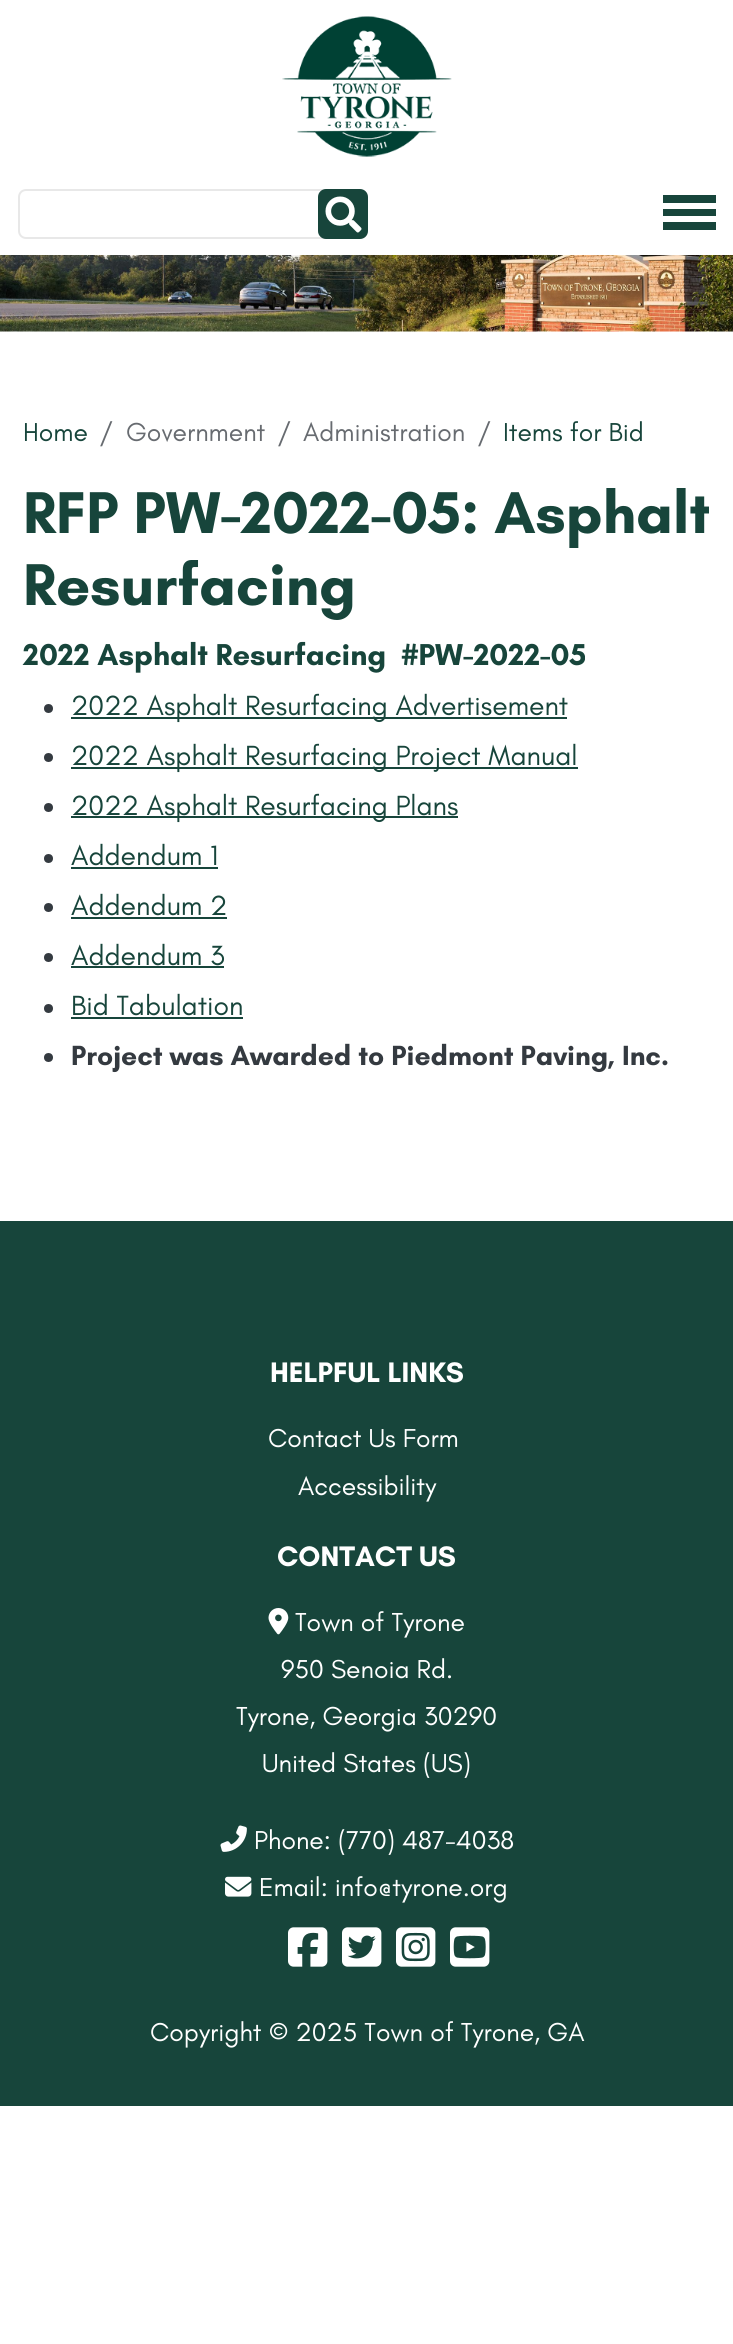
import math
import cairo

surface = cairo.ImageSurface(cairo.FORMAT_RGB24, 733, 2344)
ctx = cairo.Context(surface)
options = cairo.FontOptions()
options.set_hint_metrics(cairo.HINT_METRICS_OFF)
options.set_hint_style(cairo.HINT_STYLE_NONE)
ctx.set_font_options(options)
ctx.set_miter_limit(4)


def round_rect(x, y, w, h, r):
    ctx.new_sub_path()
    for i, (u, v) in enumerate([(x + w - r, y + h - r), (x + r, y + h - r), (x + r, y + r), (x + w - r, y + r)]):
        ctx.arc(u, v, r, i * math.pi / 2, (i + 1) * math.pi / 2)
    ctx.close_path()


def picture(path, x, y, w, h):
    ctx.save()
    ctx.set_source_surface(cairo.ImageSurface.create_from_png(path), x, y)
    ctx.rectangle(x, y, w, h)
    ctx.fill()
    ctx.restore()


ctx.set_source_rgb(1, 1, 1)
ctx.paint()
picture("img1.png", 282, 16, 170, 141)
round_rect(19, 190, 343, 48, 7)
ctx.set_source_rgb(0.91, 0.91, 0.91)
ctx.stroke()
ctx.set_source_rgb(0.09, 0.271, 0.231)
round_rect(318, 189, 50, 50, 8)
ctx.fill()
picture("img2.png", 325, 196, 37, 37)
ctx.rectangle(663, 195, 53, 8)
ctx.fill()
ctx.rectangle(663, 209, 53, 7)
ctx.fill()
ctx.rectangle(663, 222, 53, 8)
ctx.fill()
picture("img3.png", 0, 255, 733, 77)
ctx.select_font_face("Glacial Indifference")
ctx.set_font_size(26.4)
ctx.move_to(23, 441)
ctx.show_text("Home")
ctx.set_source_rgb(0.404, 0.42, 0.439)
ctx.move_to(99, 441)
ctx.show_text("/")
ctx.move_to(126, 441)
ctx.show_text("Government")
ctx.move_to(277, 441)
ctx.show_text("/")
ctx.move_to(303, 441)
ctx.show_text("Administration")
ctx.move_to(477, 441)
ctx.show_text("/")
ctx.set_source_rgb(0.09, 0.271, 0.231)
ctx.move_to(503, 441)
ctx.show_text("Items for Bid")
ctx.select_font_face("Glacial Indifference", cairo.FONT_SLANT_NORMAL, cairo.FONT_WEIGHT_BOLD)
ctx.set_font_size(60)
ctx.move_to(23, 533)
ctx.show_text("RFP PW-2022-05: Asphalt")
ctx.move_to(23, 605)
ctx.show_text("Resurfacing")
ctx.set_font_size(30.75)
ctx.move_to(23, 665)
ctx.show_text("2022 Asphalt Resurfacing  #PW-2022-05")
ctx.set_source_rgb(0.204, 0.227, 0.251)
ctx.new_path()
ctx.arc(48.5, 708.5, 4.5, 0, 2 * math.pi)
ctx.fill()
ctx.set_source_rgb(0.09, 0.271, 0.231)
ctx.rectangle(71, 717, 496, 2)
ctx.fill()
ctx.select_font_face("Glacial Indifference")
ctx.set_font_size(28.25)
ctx.move_to(71, 715)
ctx.show_text("2022 Asphalt Resurfacing Advertisement")
ctx.set_source_rgb(0.204, 0.227, 0.251)
ctx.new_path()
ctx.arc(48.5, 757.5, 4.5, 0, 2 * math.pi)
ctx.fill()
ctx.set_source_rgb(0.09, 0.271, 0.231)
ctx.rectangle(71, 767, 507, 2)
ctx.fill()
ctx.move_to(71, 765)
ctx.show_text("2022 Asphalt Resurfacing Project Manual")
ctx.set_source_rgb(0.204, 0.227, 0.251)
ctx.new_path()
ctx.arc(48.5, 807.5, 4.5, 0, 2 * math.pi)
ctx.fill()
ctx.set_source_rgb(0.09, 0.271, 0.231)
ctx.rectangle(71, 816, 387, 2)
ctx.fill()
ctx.move_to(71, 815)
ctx.show_text("2022 Asphalt Resurfacing Plans")
ctx.set_source_rgb(0.204, 0.227, 0.251)
ctx.new_path()
ctx.arc(48.5, 858.5, 4.5, 0, 2 * math.pi)
ctx.fill()
ctx.set_source_rgb(0.09, 0.271, 0.231)
ctx.move_to(71, 865)
ctx.show_text("Addendum 1")
ctx.rectangle(71, 867, 147, 2)
ctx.fill()
ctx.set_source_rgb(0.204, 0.227, 0.251)
ctx.arc(48.5, 907.5, 4.5, 0, 2 * math.pi)
ctx.fill()
ctx.set_source_rgb(0.09, 0.271, 0.231)
ctx.move_to(71, 915)
ctx.show_text("Addendum 2")
ctx.rectangle(71, 917, 156, 2)
ctx.fill()
ctx.set_source_rgb(0.204, 0.227, 0.251)
ctx.arc(48.5, 957.5, 4.5, 0, 2 * math.pi)
ctx.fill()
ctx.set_source_rgb(0.09, 0.271, 0.231)
ctx.move_to(71, 965)
ctx.show_text("Addendum 3")
ctx.rectangle(71, 966, 153, 2)
ctx.fill()
ctx.set_source_rgb(0.204, 0.227, 0.251)
ctx.arc(48.5, 1008.5, 4.5, 0, 2 * math.pi)
ctx.fill()
ctx.set_source_rgb(0.09, 0.271, 0.231)
ctx.move_to(71, 1015)
ctx.show_text("Bid Tabulation")
ctx.rectangle(71, 1017, 172, 2)
ctx.fill()
ctx.set_source_rgb(0.204, 0.227, 0.251)
ctx.arc(48.5, 1057.5, 4.5, 0, 2 * math.pi)
ctx.fill()
ctx.select_font_face("Glacial Indifference", cairo.FONT_SLANT_NORMAL, cairo.FONT_WEIGHT_BOLD)
ctx.move_to(71, 1065)
ctx.show_text("Project was Awarded to Piedmont Paving, Inc.")
ctx.set_source_rgb(0.09, 0.271, 0.231)
ctx.rectangle(0, 1221, 733, 885)
ctx.fill()
ctx.set_font_size(28.75)
ctx.set_source_rgb(1, 1, 1)
ctx.move_to(270, 1382)
ctx.show_text("HELPFUL LINKS")
ctx.select_font_face("Glacial Indifference")
ctx.set_font_size(26.4)
ctx.move_to(268, 1447)
ctx.show_text("Contact Us Form")
ctx.move_to(298, 1495)
ctx.show_text("Accessibility")
ctx.select_font_face("Glacial Indifference", cairo.FONT_SLANT_NORMAL, cairo.FONT_WEIGHT_BOLD)
ctx.set_font_size(28.75)
ctx.move_to(277, 1566)
ctx.show_text("CONTACT US")
picture("img4.png", 268, 1608, 21, 27)
ctx.select_font_face("Glacial Indifference")
ctx.set_font_size(26.4)
ctx.move_to(295, 1631)
ctx.show_text("Town of Tyrone")
ctx.move_to(281, 1678)
ctx.show_text("950 Senoia Rd.")
ctx.move_to(236, 1725)
ctx.show_text("Tyrone, Georgia 30290")
ctx.move_to(262, 1772)
ctx.show_text("United States (US)")
picture("img5.png", 220, 1825, 27, 27)
ctx.move_to(254, 1849)
ctx.show_text("Phone: (770) 487-4038")
picture("img6.png", 225, 1876, 27, 21)
ctx.move_to(259, 1896)
ctx.show_text("Email: info@tyrone.org")
picture("img7.png", 288, 1927, 40, 40)
picture("img8.png", 342, 1927, 40, 40)
picture("img9.png", 396, 1927, 40, 40)
picture("img10.png", 450, 1927, 40, 40)
ctx.move_to(150, 2041)
ctx.show_text("Copyright © 2025 Town of Tyrone, GA")
surface.write_to_png("page.png")
